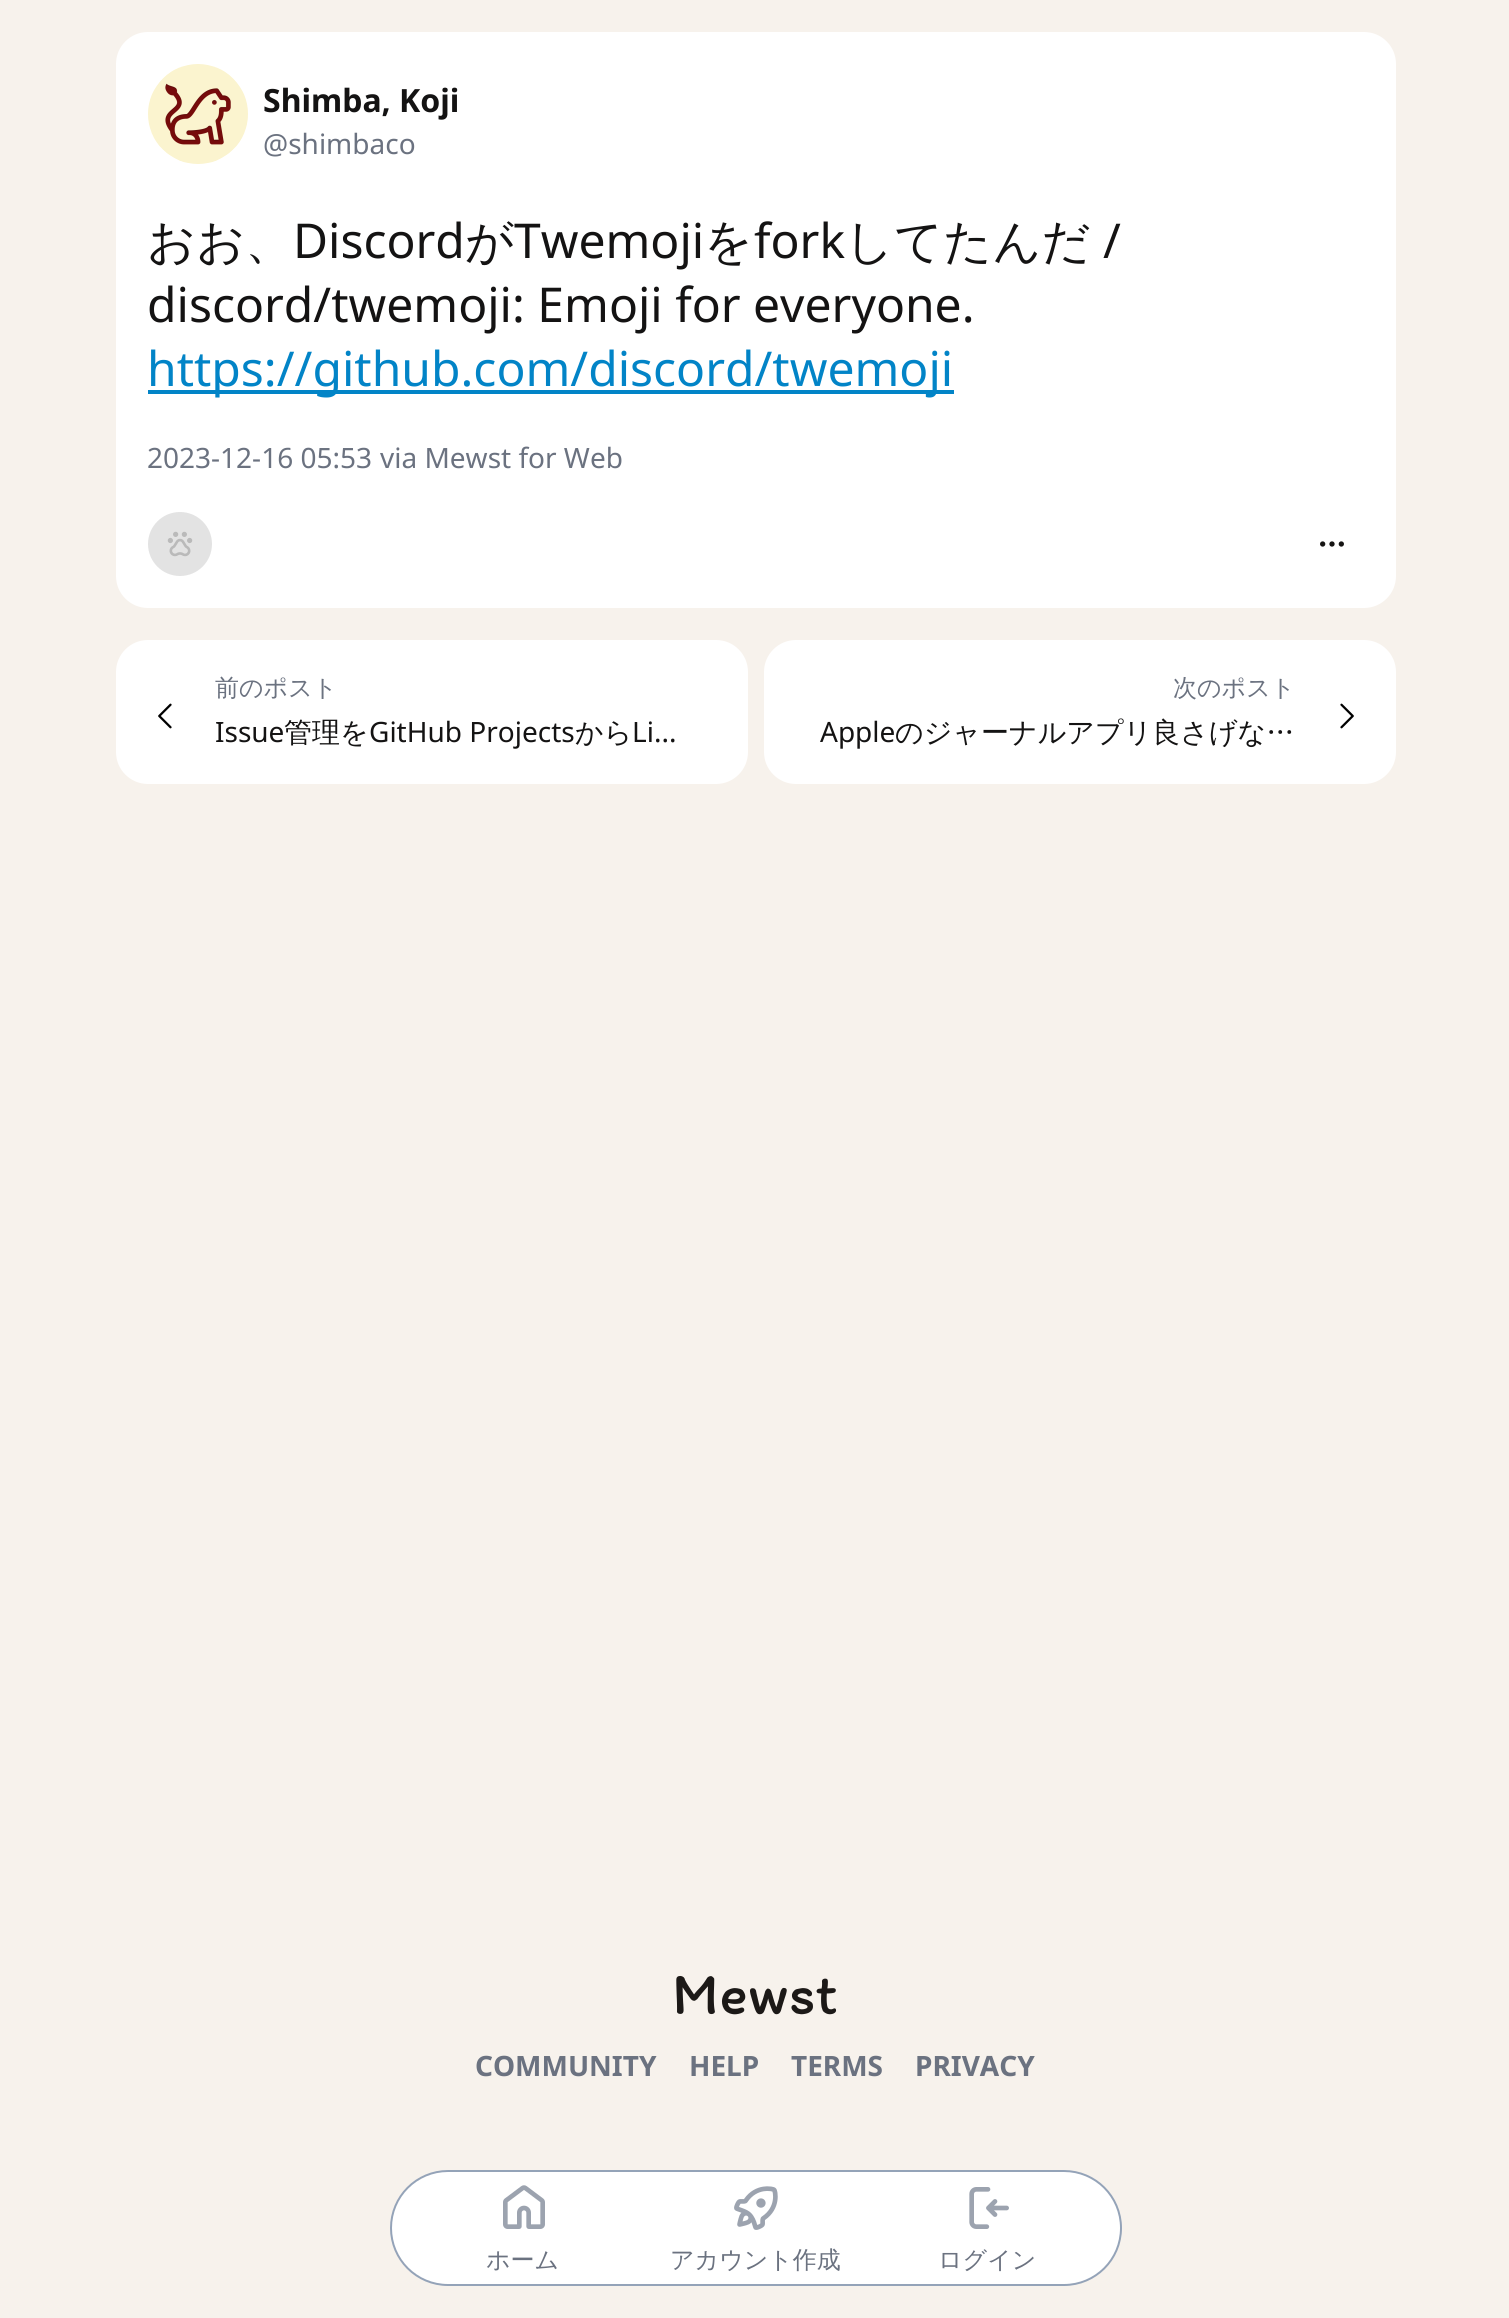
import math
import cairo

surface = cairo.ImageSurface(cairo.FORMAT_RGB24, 1509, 2318)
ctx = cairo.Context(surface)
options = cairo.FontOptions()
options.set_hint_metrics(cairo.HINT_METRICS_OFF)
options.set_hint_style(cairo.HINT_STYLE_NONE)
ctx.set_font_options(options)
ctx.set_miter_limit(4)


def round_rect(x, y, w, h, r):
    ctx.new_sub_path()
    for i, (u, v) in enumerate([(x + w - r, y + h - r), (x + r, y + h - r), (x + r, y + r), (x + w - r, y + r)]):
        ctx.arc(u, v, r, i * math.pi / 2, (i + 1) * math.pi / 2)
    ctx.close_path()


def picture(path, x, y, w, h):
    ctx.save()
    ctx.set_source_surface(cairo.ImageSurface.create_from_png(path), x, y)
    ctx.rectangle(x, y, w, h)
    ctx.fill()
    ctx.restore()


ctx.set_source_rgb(0.965, 0.949, 0.922)
ctx.paint()
ctx.set_source_rgb(1, 1, 1)
round_rect(116, 32, 1280, 576, 32)
ctx.fill()
picture("img1.png", 148, 64, 100, 100)
ctx.select_font_face("Noto Sans", cairo.FONT_SLANT_NORMAL, cairo.FONT_WEIGHT_BOLD)
ctx.set_font_size(32)
ctx.set_source_rgb(0.082, 0.078, 0.075)
ctx.move_to(263, 112)
ctx.show_text("Shimba, Koji")
ctx.select_font_face("Noto Sans")
ctx.set_font_size(28)
ctx.set_source_rgb(0.42, 0.447, 0.502)
ctx.move_to(263, 154)
ctx.show_text("@shimbaco")
ctx.select_font_face("WenQuanYi Zen Hei Medium")
ctx.set_font_size(48)
ctx.set_source_rgb(0.082, 0.078, 0.075)
ctx.move_to(147, 258)
ctx.show_text("おお、")
ctx.select_font_face("Noto Sans")
ctx.move_to(293, 258)
ctx.show_text("Discord")
ctx.select_font_face("WenQuanYi Zen Hei Medium")
ctx.move_to(465, 258)
ctx.show_text("が")
ctx.select_font_face("Noto Sans")
ctx.move_to(514, 258)
ctx.show_text("Twemoji")
ctx.select_font_face("WenQuanYi Zen Hei Medium")
ctx.move_to(704, 258)
ctx.show_text("を")
ctx.select_font_face("Noto Sans")
ctx.move_to(754, 258)
ctx.show_text("fork")
ctx.select_font_face("WenQuanYi Zen Hei Medium")
ctx.move_to(845, 258)
ctx.show_text("してたんだ")
ctx.select_font_face("Noto Sans")
ctx.move_to(1103, 258)
ctx.show_text("/")
ctx.move_to(147, 322)
ctx.show_text("discord/twemoji: Emoji for everyone.")
ctx.set_source_rgb(0.008, 0.518, 0.78)
ctx.rectangle(148, 390, 806, 4)
ctx.fill()
ctx.move_to(147, 386)
ctx.show_text("https://github.com/discord/twemoji")
ctx.set_font_size(28)
ctx.set_source_rgb(0.42, 0.447, 0.502)
ctx.move_to(147, 468)
ctx.show_text("2023-12-16 05:53")
ctx.move_to(380, 468)
ctx.show_text("via Mewst for Web")
ctx.set_source_rgba(0.451, 0.451, 0.451, 0.2)
ctx.new_path()
ctx.arc(180, 544, 32, 0, 2 * math.pi)
ctx.fill()
picture("img2.png", 167, 531, 26, 26)
picture("img3.png", 1320, 541, 24, 6)
ctx.set_source_rgb(1, 1, 1)
round_rect(116, 640, 632, 144, 32)
ctx.fill()
picture("img4.png", 158, 703, 14, 26)
ctx.select_font_face("WenQuanYi Zen Hei Medium")
ctx.set_font_size(24)
ctx.set_source_rgb(0.42, 0.447, 0.502)
ctx.move_to(215, 696)
ctx.show_text("前のポスト")
ctx.select_font_face("Noto Sans")
ctx.set_font_size(28)
ctx.set_source_rgb(0.082, 0.078, 0.075)
ctx.move_to(215, 742)
ctx.show_text("Issue")
ctx.select_font_face("WenQuanYi Zen Hei Medium")
ctx.move_to(284, 742)
ctx.show_text("管理を")
ctx.select_font_face("Noto Sans")
ctx.move_to(369, 742)
ctx.show_text("GitHub Projects")
ctx.select_font_face("WenQuanYi Zen Hei Medium")
ctx.move_to(575, 742)
ctx.show_text("から")
ctx.select_font_face("Noto Sans")
ctx.move_to(632, 742)
ctx.show_text("Li...")
ctx.set_source_rgb(1, 1, 1)
round_rect(764, 640, 632, 144, 32)
ctx.fill()
ctx.select_font_face("WenQuanYi Zen Hei Medium")
ctx.set_font_size(24)
ctx.set_source_rgb(0.42, 0.447, 0.502)
ctx.move_to(1173, 696)
ctx.show_text("次のポスト")
ctx.select_font_face("Noto Sans")
ctx.set_font_size(28)
ctx.set_source_rgb(0.082, 0.078, 0.075)
ctx.move_to(820, 742)
ctx.show_text("Apple")
ctx.select_font_face("WenQuanYi Zen Hei Medium")
ctx.move_to(895, 742)
ctx.show_text("のジャーナルアプリ良さげな…")
picture("img5.png", 1340, 703, 14, 26)
ctx.select_font_face("Itim")
ctx.set_font_size(60)
ctx.set_source_rgb(0.11, 0.098, 0.09)
ctx.move_to(672, 2014)
ctx.show_text("Mewst")
ctx.select_font_face("Noto Sans", cairo.FONT_SLANT_NORMAL, cairo.FONT_WEIGHT_BOLD)
ctx.set_font_size(28)
ctx.set_source_rgb(0.42, 0.447, 0.502)
ctx.move_to(475, 2076)
ctx.show_text("COMMUNITY")
ctx.move_to(689, 2076)
ctx.show_text("HELP")
ctx.move_to(791, 2076)
ctx.show_text("TERMS")
ctx.move_to(915, 2076)
ctx.show_text("PRIVACY")
ctx.set_source_rgb(1, 1, 1)
round_rect(391, 2171, 730, 114, 57)
ctx.fill_preserve()
ctx.set_source_rgb(0.58, 0.639, 0.722)
ctx.stroke()
picture("img6.png", 503, 2185, 42, 44)
ctx.select_font_face("WenQuanYi Zen Hei Medium")
ctx.set_font_size(24)
ctx.set_source_rgb(0.42, 0.447, 0.502)
ctx.move_to(486, 2268)
ctx.show_text("ホーム")
picture("img7.png", 734, 2186, 44, 44)
ctx.move_to(670, 2268)
ctx.show_text("アカウント作成")
picture("img8.png", 969, 2187, 40, 42)
ctx.move_to(938, 2268)
ctx.show_text("ログイン")
surface.write_to_png("page.png")
